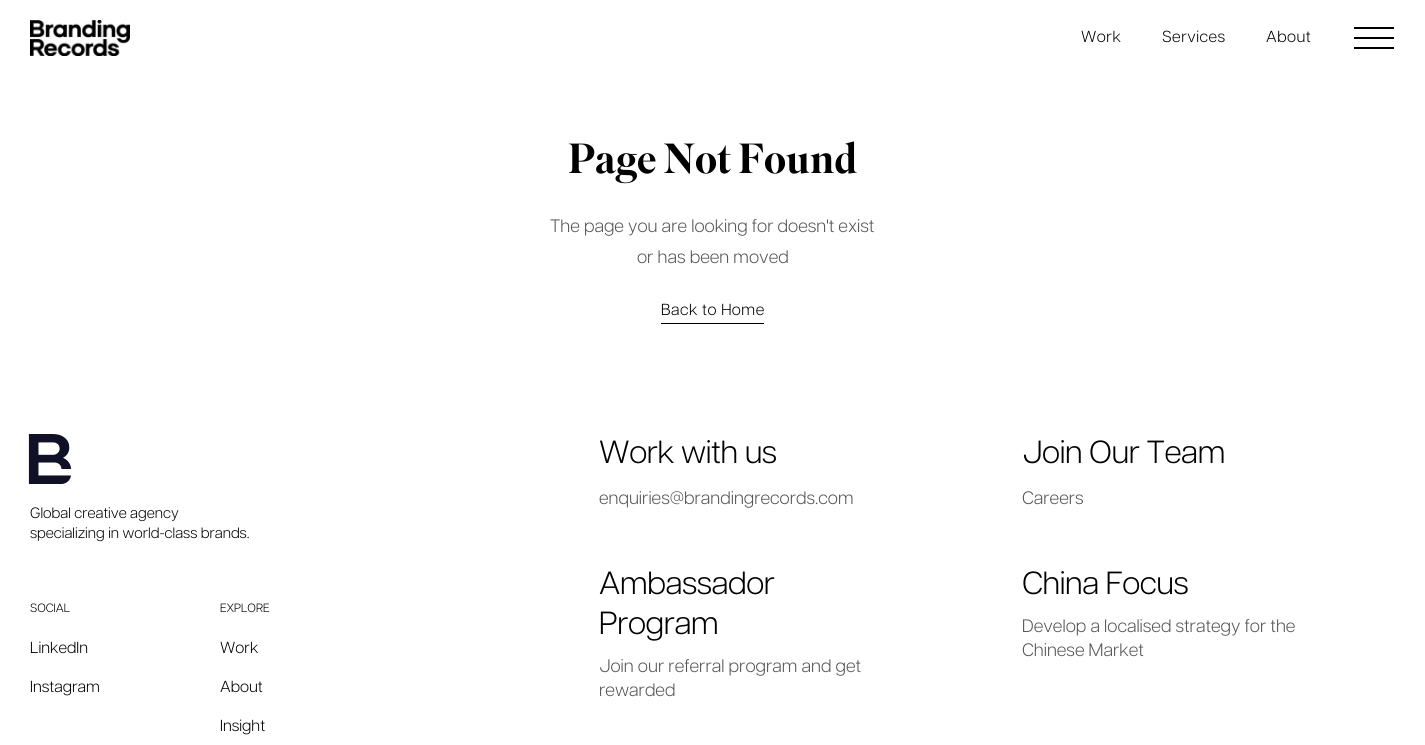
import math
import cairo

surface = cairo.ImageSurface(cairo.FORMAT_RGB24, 1425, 745)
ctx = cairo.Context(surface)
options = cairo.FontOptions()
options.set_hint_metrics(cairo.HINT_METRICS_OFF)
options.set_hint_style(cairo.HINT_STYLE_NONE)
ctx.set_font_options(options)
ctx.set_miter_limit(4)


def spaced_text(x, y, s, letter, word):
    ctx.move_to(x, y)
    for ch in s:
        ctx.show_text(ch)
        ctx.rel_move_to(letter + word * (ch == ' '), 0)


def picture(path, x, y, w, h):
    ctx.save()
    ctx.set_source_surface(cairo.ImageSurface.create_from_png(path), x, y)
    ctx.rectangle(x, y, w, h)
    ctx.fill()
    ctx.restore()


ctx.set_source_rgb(1, 1, 1)
ctx.paint()
picture("img1.png", 30, 20, 100, 36)
ctx.select_font_face("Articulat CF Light")
ctx.set_font_size(16)
ctx.set_source_rgb(0, 0, 0)
spaced_text(1081, 42, "Work", 0.5, 0)
spaced_text(1162, 42, "Services", 0.5, 0)
spaced_text(1266, 42, "About", 0.5, 0)
ctx.rectangle(1354, 27, 40, 2)
ctx.fill()
ctx.rectangle(1354, 37, 40, 2)
ctx.fill()
ctx.rectangle(1354, 47, 40, 2)
ctx.fill()
ctx.select_font_face("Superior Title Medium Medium")
ctx.set_font_size(42)
spaced_text(568, 173, "Page Not Found", -0.4, 0)
ctx.select_font_face("Articulat CF Light")
ctx.set_font_size(18)
ctx.set_source_rgb(0.333, 0.333, 0.333)
ctx.move_to(550, 232)
ctx.show_text("The page you are looking for doesn't exist")
ctx.move_to(637, 263)
ctx.show_text("or has been moved")
ctx.set_source_rgb(0, 0, 0)
ctx.rectangle(661, 323, 103, 1)
ctx.fill()
ctx.set_font_size(16)
spaced_text(661, 315, "Back to Home", 0.5, 0)
picture("img2.png", 28, 434, 44, 50)
ctx.set_font_size(15)
ctx.move_to(30, 518)
ctx.show_text("Global creative agency")
ctx.move_to(30, 538)
ctx.show_text("specializing in world-class brands.")
ctx.set_font_size(12)
ctx.move_to(30, 612)
ctx.show_text("SOCIAL")
ctx.set_font_size(16)
ctx.move_to(30, 653)
ctx.show_text("LinkedIn")
ctx.move_to(30, 692)
ctx.show_text("Instagram")
ctx.set_font_size(12)
ctx.move_to(220, 612)
ctx.show_text("EXPLORE")
ctx.set_font_size(16)
ctx.move_to(220, 653)
ctx.show_text("Work")
ctx.move_to(220, 692)
ctx.show_text("About")
ctx.move_to(220, 731)
ctx.show_text("Insight")
ctx.set_font_size(32)
spaced_text(599, 463, "Work with us", -0.4, 0)
ctx.set_font_size(18)
ctx.set_source_rgb(0.333, 0.333, 0.333)
ctx.move_to(599, 504)
ctx.show_text("enquiries@brandingrecords.com")
ctx.set_font_size(32)
ctx.set_source_rgb(0, 0, 0)
spaced_text(1022, 463, "Join Our Team", -0.4, 0)
ctx.set_font_size(18)
ctx.set_source_rgb(0.333, 0.333, 0.333)
ctx.move_to(1022, 504)
ctx.show_text("Careers")
ctx.set_font_size(32)
ctx.set_source_rgb(0, 0, 0)
spaced_text(599, 594, "Ambassador", -0.4, 0)
spaced_text(599, 634, "Program", -0.4, 0)
ctx.set_font_size(18)
ctx.set_source_rgb(0.333, 0.333, 0.333)
ctx.move_to(599, 672)
ctx.show_text("Join our referral program and get")
ctx.move_to(599, 696)
ctx.show_text("rewarded")
ctx.set_font_size(32)
ctx.set_source_rgb(0, 0, 0)
spaced_text(1022, 594, "China Focus", -0.4, 0)
ctx.set_font_size(18)
ctx.set_source_rgb(0.333, 0.333, 0.333)
ctx.move_to(1022, 632)
ctx.show_text("Develop a localised strategy for the")
ctx.move_to(1022, 656)
ctx.show_text("Chinese Market")
surface.write_to_png("page.png")
